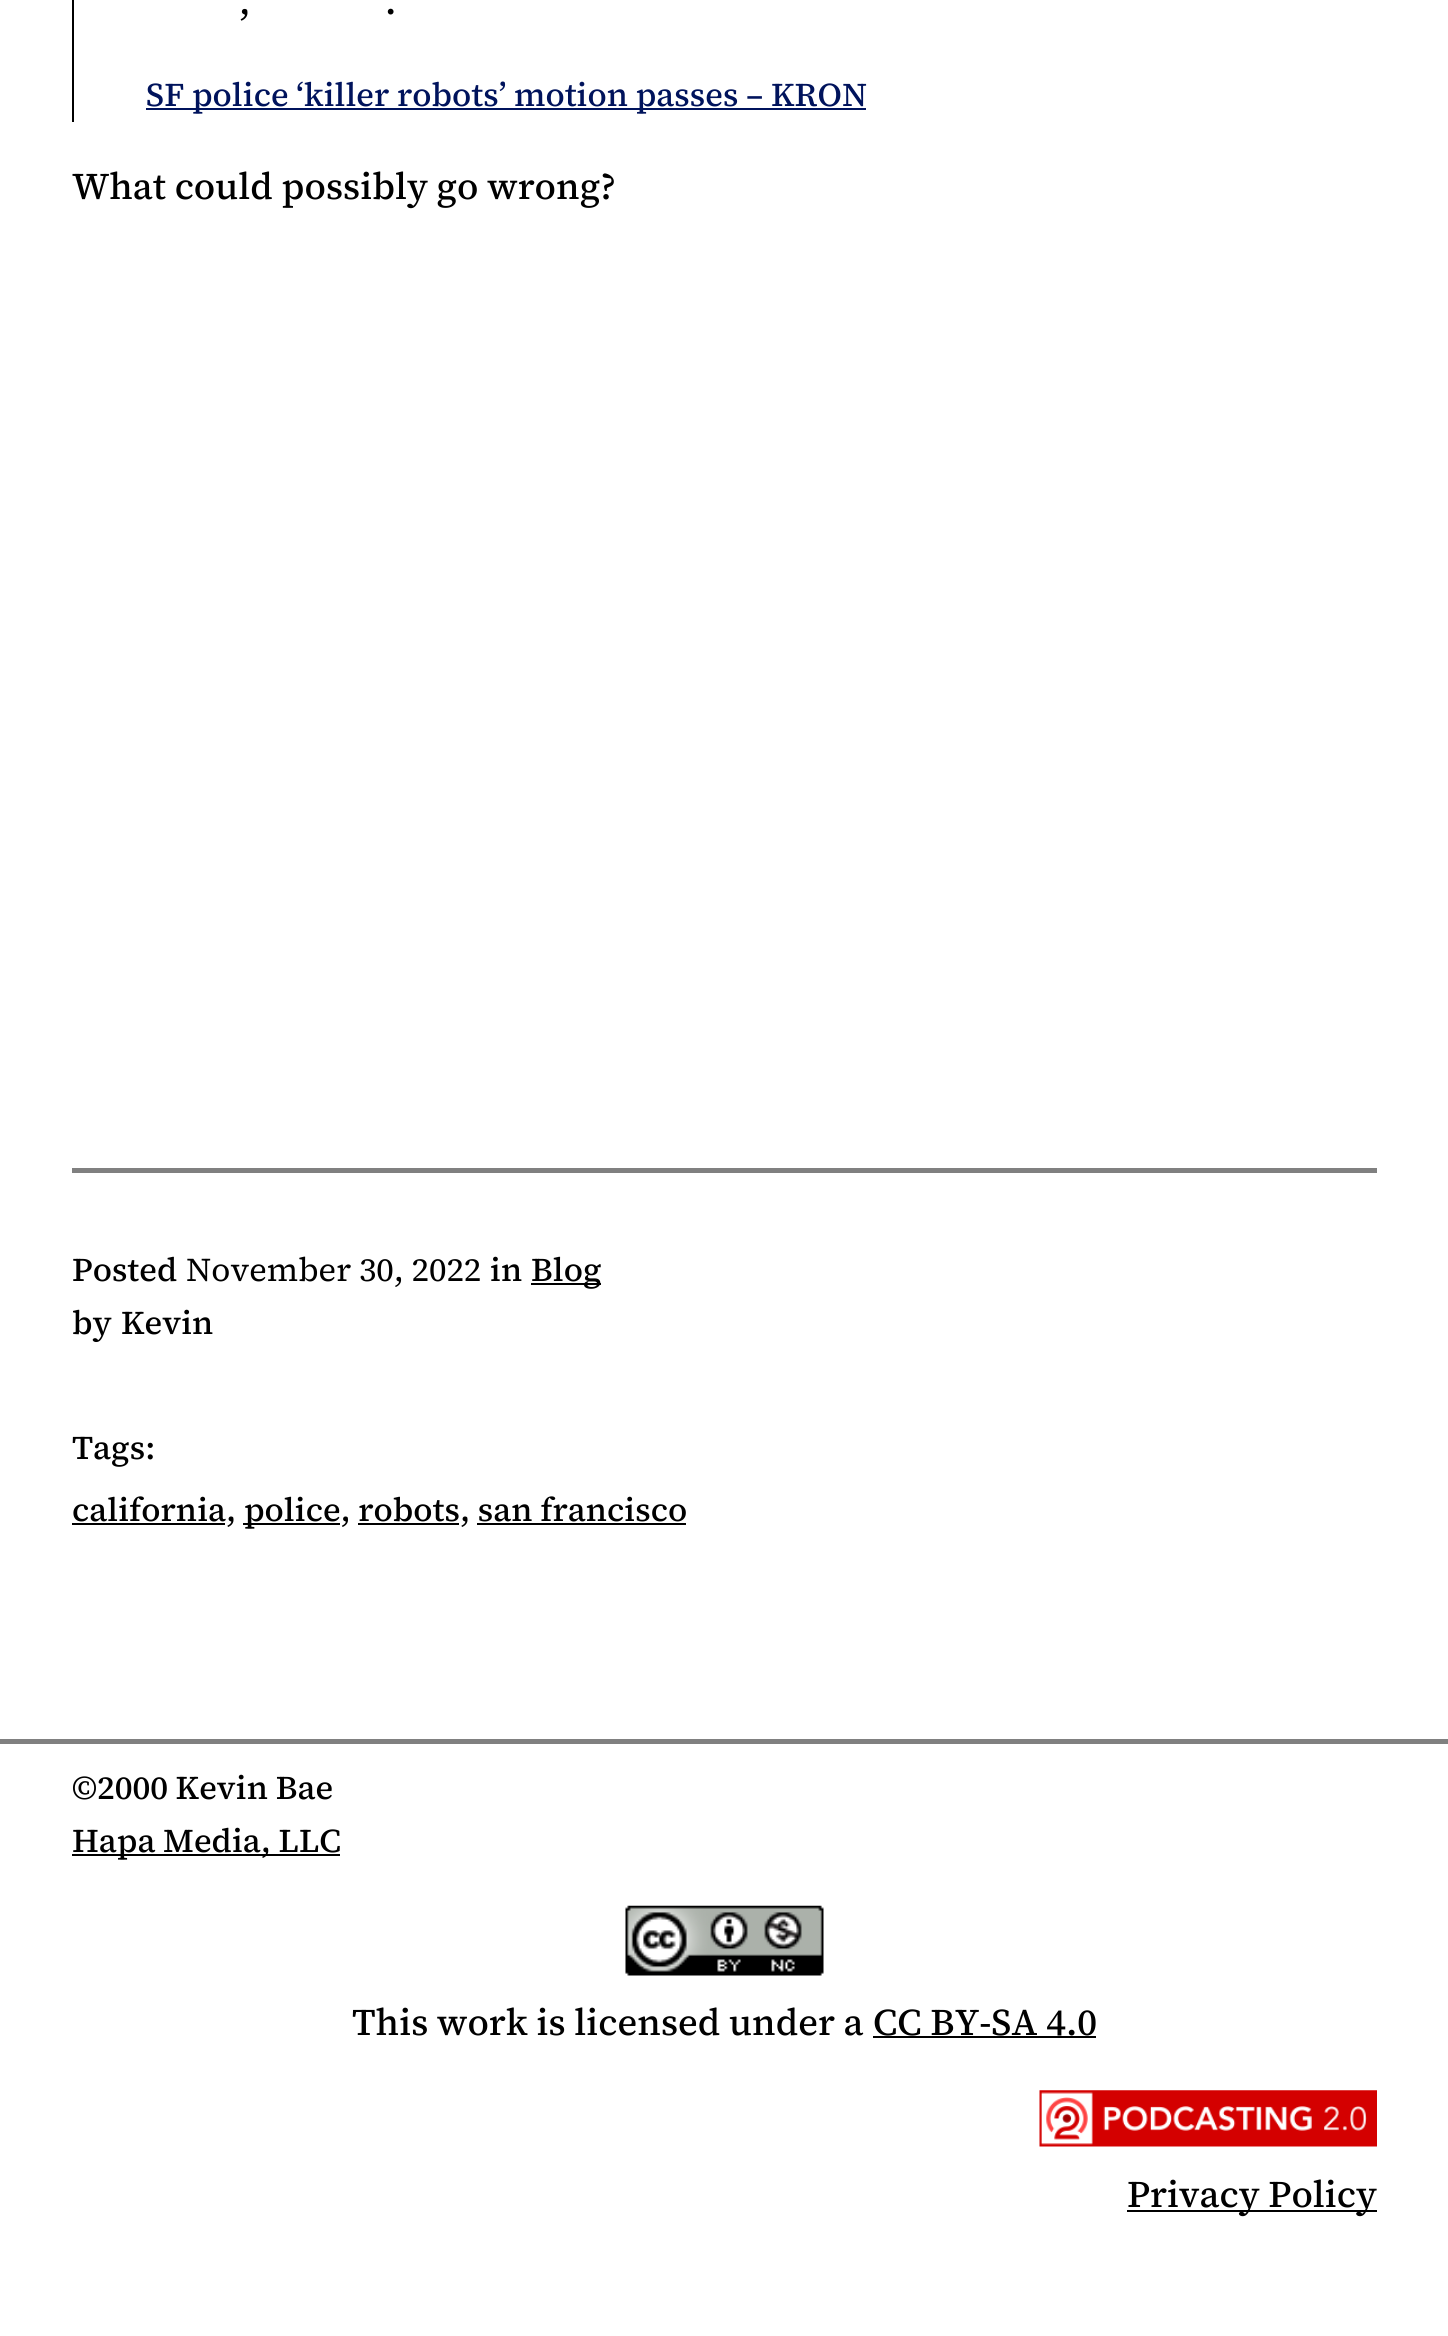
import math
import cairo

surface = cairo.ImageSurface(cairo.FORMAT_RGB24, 1448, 2336)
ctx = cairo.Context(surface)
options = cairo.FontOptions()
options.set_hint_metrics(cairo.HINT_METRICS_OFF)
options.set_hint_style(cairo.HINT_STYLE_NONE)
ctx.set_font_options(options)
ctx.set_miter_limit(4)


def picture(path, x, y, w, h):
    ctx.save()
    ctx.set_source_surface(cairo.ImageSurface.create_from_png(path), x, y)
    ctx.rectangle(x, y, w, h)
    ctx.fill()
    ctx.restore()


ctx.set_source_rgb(1, 1, 1)
ctx.paint()
ctx.set_source_rgb(0, 0, 0)
ctx.rectangle(72, 0, 2, 122)
ctx.fill()
ctx.select_font_face("Source Serif 4 Medium")
ctx.set_font_size(37.6)
ctx.move_to(239, 14)
ctx.show_text(",")
ctx.move_to(385, 14)
ctx.show_text(".")
ctx.set_source_rgb(0, 0.078, 0.361)
ctx.rectangle(146, 108, 720, 2)
ctx.fill()
ctx.select_font_face("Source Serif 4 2 Medium")
ctx.set_font_size(33.15)
ctx.move_to(146, 106)
ctx.show_text("SF police ‘killer robots’ motion passes – KRON")
ctx.select_font_face("Source Serif 4 Medium")
ctx.set_font_size(37.6)
ctx.set_source_rgb(0, 0, 0)
ctx.move_to(72, 199)
ctx.show_text("What could possibly go wrong?")
ctx.set_source_rgb(0.502, 0.502, 0.502)
ctx.rectangle(72, 1168, 1305, 5)
ctx.fill()
ctx.select_font_face("Source Serif 4 2 Medium")
ctx.set_font_size(33.15)
ctx.set_source_rgb(0, 0, 0)
ctx.move_to(72, 1281)
ctx.show_text("Posted")
ctx.select_font_face("Source Serif 4")
ctx.move_to(186, 1281)
ctx.show_text("November 30, 2022")
ctx.select_font_face("Source Serif 4 2 Medium")
ctx.move_to(490, 1281)
ctx.show_text("in")
ctx.rectangle(531, 1283, 70, 2)
ctx.fill()
ctx.move_to(531, 1281)
ctx.show_text("Blog")
ctx.move_to(72, 1334)
ctx.show_text("by")
ctx.move_to(121, 1334)
ctx.show_text("Kevin")
ctx.move_to(72, 1459)
ctx.show_text("Tags:")
ctx.rectangle(72, 1523, 153, 2)
ctx.fill()
ctx.move_to(72, 1521)
ctx.show_text("california,")
ctx.rectangle(243, 1523, 97, 2)
ctx.fill()
ctx.move_to(244, 1521)
ctx.show_text("police, robots, san francisco")
ctx.rectangle(358, 1523, 101, 2)
ctx.fill()
ctx.rectangle(477, 1523, 209, 2)
ctx.fill()
ctx.set_source_rgb(0.502, 0.502, 0.502)
ctx.rectangle(0, 1739, 1448, 5)
ctx.fill()
ctx.set_source_rgb(0, 0, 0)
ctx.move_to(72, 1799)
ctx.show_text("©2000 Kevin Bae")
ctx.rectangle(72, 1854, 268, 2)
ctx.fill()
ctx.move_to(72, 1852)
ctx.show_text("Hapa Media, LLC")
picture("img1.png", 625, 1905, 199, 71)
ctx.select_font_face("Source Serif 4 Medium")
ctx.set_font_size(37.6)
ctx.move_to(352, 2035)
ctx.show_text("This work is licensed under a")
ctx.move_to(873, 2035)
ctx.show_text("CC BY-SA 4.0")
ctx.rectangle(873, 2036, 223, 2)
ctx.fill()
picture("img2.png", 1039, 2090, 338, 57)
ctx.rectangle(1127, 2210, 250, 2)
ctx.fill()
ctx.move_to(1127, 2207)
ctx.show_text("Privacy Policy")
surface.write_to_png("page.png")
